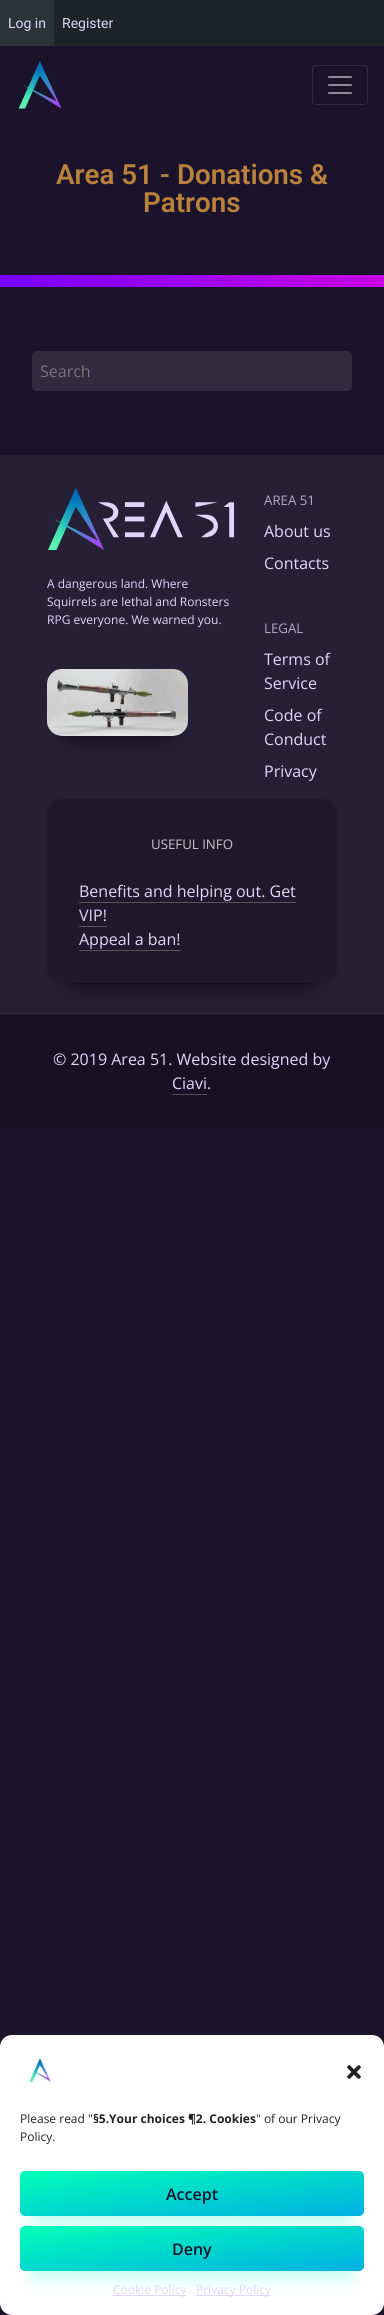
import math
import cairo

surface = cairo.ImageSurface(cairo.FORMAT_RGB24, 384, 2315)
ctx = cairo.Context(surface)
options = cairo.FontOptions()
options.set_hint_metrics(cairo.HINT_METRICS_OFF)
options.set_hint_style(cairo.HINT_STYLE_NONE)
ctx.set_font_options(options)
ctx.set_miter_limit(4)


def round_rect(x, y, w, h, r):
    ctx.new_sub_path()
    for i, (u, v) in enumerate([(x + w - r, y + h - r), (x + r, y + h - r), (x + r, y + r), (x + w - r, y + r)]):
        ctx.arc(u, v, r, i * math.pi / 2, (i + 1) * math.pi / 2)
    ctx.close_path()


def shadow(x, y, w, h, r, blur, alpha):
    ctx.push_group_with_content(cairo.CONTENT_ALPHA)
    ctx.set_operator(cairo.OPERATOR_SOURCE)
    for i in range(15, -16, -2):
        e = blur * i / 6
        if min(w, h) + 2 * e > 0:
            ctx.set_source_rgba(0, 0, 0, alpha * math.erfc((i - 1) / 8.5) / 2)
            round_rect(x - e, y - e, w + 2 * e, h + 2 * e, max(0, min(r + e + blur * .6, min(w, h) / 2 + e)))
            ctx.fill()
    ctx.mask(ctx.pop_group())


def picture(path, x, y, w, h):
    ctx.save()
    ctx.set_source_surface(cairo.ImageSurface.create_from_png(path), x, y)
    ctx.rectangle(x, y, w, h)
    ctx.fill()
    ctx.restore()


ctx.set_source_rgb(0.102, 0.078, 0.169)
ctx.paint()
ctx.set_source_rgb(0.114, 0.137, 0.153)
ctx.rectangle(54, 0, 330, 46)
ctx.fill()
ctx.set_source_rgb(0.173, 0.2, 0.22)
ctx.rectangle(0, 0, 54, 46)
ctx.fill()
ctx.select_font_face("Roboto")
ctx.set_font_size(14)
ctx.set_source_rgb(0.878, 0.839, 0.988)
ctx.move_to(8, 28)
ctx.show_text("Log in")
ctx.move_to(62, 28)
ctx.show_text("Register")
picture("img1.png", 18, 61, 43, 48)
round_rect(312.5, 65.5, 55, 39, 3.5)
ctx.set_source_rgb(0.192, 0.173, 0.251)
ctx.set_line_width(1)
ctx.stroke()
picture("img2.png", 328, 76, 24, 18)
picture("img3.png", 0, 275, 384, 12)
ctx.select_font_face("Roboto SemiBold")
ctx.set_font_size(27.75)
ctx.set_source_rgb(0.725, 0.506, 0.235)
ctx.move_to(56, 184)
ctx.show_text("Area 51 - Donations &")
ctx.move_to(143, 212)
ctx.show_text("Patrons")
ctx.set_source_rgb(0.188, 0.169, 0.251)
round_rect(32, 351, 320, 40, 5)
ctx.fill()
ctx.select_font_face("Open Sans")
ctx.set_font_size(16)
ctx.set_source_rgb(0.459, 0.459, 0.459)
ctx.move_to(40, 377)
ctx.show_text("Search")
ctx.set_source_rgb(0.145, 0.125, 0.212)
ctx.rectangle(0, 455, 384, 560)
ctx.fill()
picture("img4.png", 48, 488, 186, 62)
ctx.set_font_size(12)
ctx.set_source_rgb(0.878, 0.839, 0.988)
ctx.move_to(47, 588)
ctx.show_text("A dangerous land. Where")
ctx.move_to(47, 606)
ctx.show_text("Squirrels are lethal and Ronsters")
ctx.move_to(47, 624)
ctx.show_text("RPG everyone. We warned you.")
ctx.set_source_rgb(0, 0, 0)
shadow(72, 714, 91, 17, 0, 12.5, 1)
shadow(67, 699, 101, 27, 0, 7.5, 1)
picture("img5.png", 47, 669, 141, 67)
ctx.set_font_size(13.25)
ctx.set_source_rgb(0.694, 0.663, 0.796)
ctx.move_to(264, 505)
ctx.show_text("AREA 51")
ctx.set_font_size(16)
ctx.set_source_rgb(0.878, 0.839, 0.988)
ctx.move_to(264, 537)
ctx.show_text("About us")
ctx.move_to(264, 569)
ctx.show_text("Contacts")
ctx.set_font_size(13.25)
ctx.set_source_rgb(0.694, 0.663, 0.796)
ctx.move_to(264, 633)
ctx.show_text("LEGAL")
ctx.set_font_size(16)
ctx.set_source_rgb(0.878, 0.839, 0.988)
ctx.move_to(264, 665)
ctx.show_text("Terms of")
ctx.move_to(264, 689)
ctx.show_text("Service")
ctx.move_to(264, 721)
ctx.show_text("Code of")
ctx.move_to(264, 745)
ctx.show_text("Conduct")
ctx.move_to(264, 777)
ctx.show_text("Privacy")
ctx.set_source_rgb(0.086, 0.067, 0.145)
ctx.rectangle(0, 1015, 384, 112)
ctx.fill()
ctx.set_source_rgb(0, 0, 0)
shadow(72, 844, 240, 134, 0, 12.5, 1)
shadow(67, 829, 250, 144, 0, 7.5, 1)
ctx.set_source_rgb(0.118, 0.102, 0.169)
round_rect(47, 799, 290, 184, 15)
ctx.fill()
ctx.set_font_size(13.25)
ctx.set_source_rgb(0.78, 0.776, 0.792)
ctx.move_to(151, 849)
ctx.show_text("USEFUL INFO")
ctx.set_font_size(16)
ctx.set_source_rgb(0.878, 0.839, 0.988)
ctx.move_to(79, 897)
ctx.show_text("Benefits and helping out. Get")
ctx.set_source_rgb(0.337, 0.325, 0.376)
ctx.rectangle(79, 902, 217, 1)
ctx.fill()
ctx.set_source_rgb(0.878, 0.839, 0.988)
ctx.move_to(79, 921)
ctx.show_text("VIP!")
ctx.set_source_rgb(0.337, 0.325, 0.376)
ctx.rectangle(79, 926, 28, 1)
ctx.fill()
ctx.set_source_rgb(0.878, 0.839, 0.988)
ctx.move_to(79, 945)
ctx.show_text("Appeal a ban!")
ctx.set_source_rgb(0.337, 0.325, 0.376)
ctx.rectangle(79, 950, 102, 1)
ctx.fill()
ctx.set_source_rgb(0.878, 0.839, 0.988)
ctx.move_to(53, 1065)
ctx.show_text("© 2019 Area 51. Website designed by")
ctx.move_to(172, 1089)
ctx.show_text("Ciavi.")
ctx.set_source_rgb(0.314, 0.302, 0.361)
ctx.rectangle(172, 1094, 35, 1)
ctx.fill()
ctx.set_source_rgb(1, 1, 1)
round_rect(0, 2035, 384, 280, 12)
ctx.fill()
picture("img6.png", 29, 2058, 22, 25)
picture("img7.png", 347, 2065, 14, 14)
ctx.set_font_size(12)
ctx.set_source_rgb(0.133, 0.133, 0.133)
ctx.move_to(20, 2123)
ctx.show_text("Please read \"")
ctx.select_font_face("Open Sans", cairo.FONT_SLANT_NORMAL, cairo.FONT_WEIGHT_BOLD)
ctx.move_to(93, 2123)
ctx.show_text("§5.Your choices ¶2. Cookies")
ctx.select_font_face("Open Sans")
ctx.move_to(256, 2123)
ctx.show_text("\" of our Privacy")
ctx.move_to(20, 2141)
ctx.show_text("Policy.")
ctx.set_source_rgb(0, 1, 0.714)
shadow(35, 2206, 314, 15, 0, 10, 0.3)
shadow(35, 2196, 314, 15, 0, 5, 0.3)
gradient = cairo.LinearGradient(186, 2149, 198, 2238)
gradient.add_color_stop_rgba(0, 0, 1, 0.722, 1)
gradient.add_color_stop_rgba(1, 0, 0.69, 0.89, 1)
ctx.set_source(gradient)
round_rect(20, 2171, 344, 45, 5)
ctx.fill()
ctx.select_font_face("Open Sans SemiBold")
ctx.set_font_size(16)
ctx.set_source_rgb(0.102, 0.078, 0.169)
ctx.move_to(166, 2200)
ctx.show_text("Accept")
ctx.set_source_rgb(0, 1, 0.714)
shadow(35, 2261, 314, 15, 0, 10, 0.3)
shadow(35, 2251, 314, 15, 0, 5, 0.3)
gradient = cairo.LinearGradient(186, 2204, 198, 2293)
gradient.add_color_stop_rgba(0, 0, 1, 0.722, 1)
gradient.add_color_stop_rgba(1, 0, 0.69, 0.89, 1)
ctx.set_source(gradient)
round_rect(20, 2226, 344, 45, 5)
ctx.fill()
ctx.set_source_rgb(0.102, 0.078, 0.169)
ctx.move_to(172, 2255)
ctx.show_text("Deny")
ctx.set_source_rgb(0.878, 0.839, 0.988)
ctx.rectangle(113, 2295, 73, 1)
ctx.fill()
ctx.select_font_face("Open Sans")
ctx.set_font_size(12)
ctx.move_to(113, 2294)
ctx.show_text("Cookie Policy")
ctx.rectangle(196, 2295, 75, 1)
ctx.fill()
ctx.move_to(196, 2294)
ctx.show_text("Privacy Policy")
surface.write_to_png("page.png")
